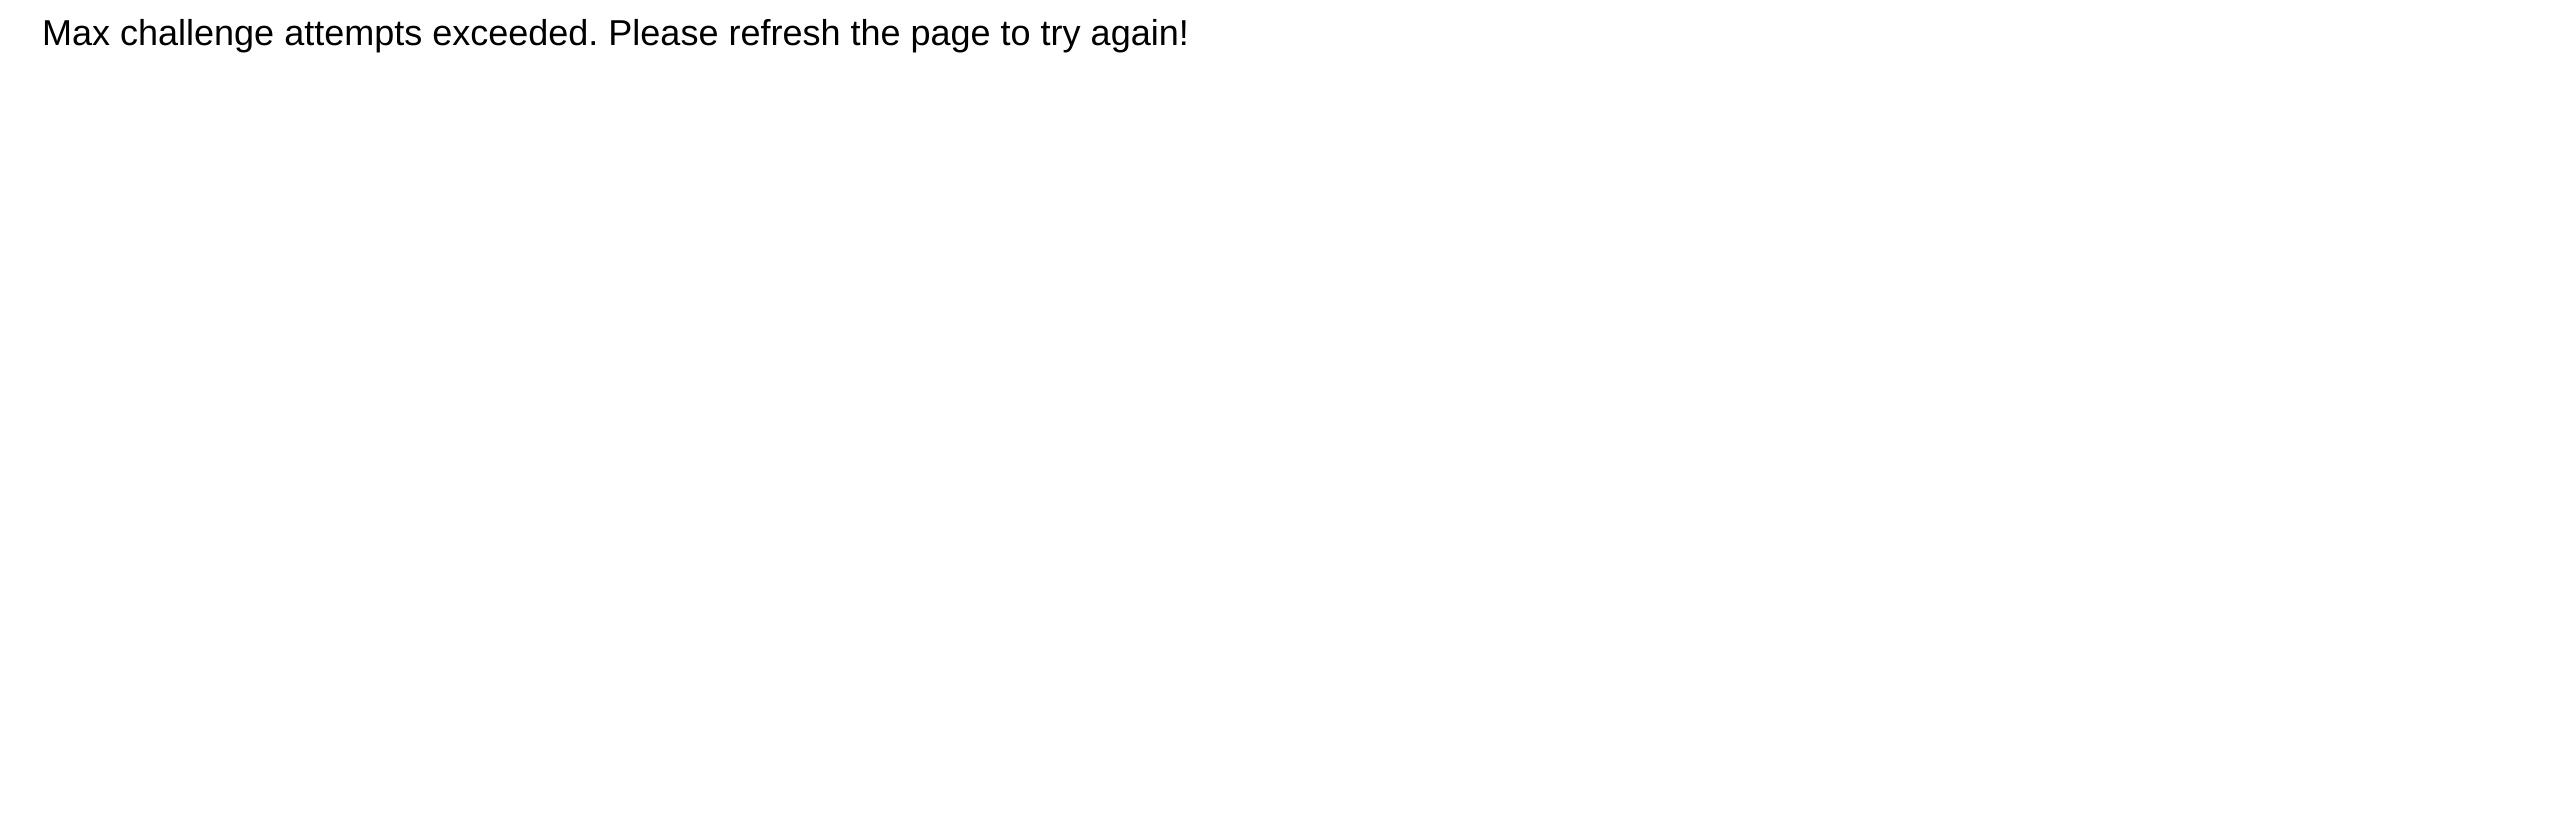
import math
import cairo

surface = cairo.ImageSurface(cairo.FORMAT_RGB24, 2555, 825)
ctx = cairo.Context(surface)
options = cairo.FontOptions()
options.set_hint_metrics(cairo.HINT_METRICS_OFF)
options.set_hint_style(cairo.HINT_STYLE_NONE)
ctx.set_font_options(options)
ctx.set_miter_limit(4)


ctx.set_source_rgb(1, 1, 1)
ctx.paint()
ctx.select_font_face("Liberation Sans")
ctx.set_font_size(36)
ctx.set_source_rgb(0, 0, 0)
ctx.move_to(42, 45)
ctx.show_text("Max challenge attempts exceeded. Please refresh the page to try again!")
surface.write_to_png("page.png")
